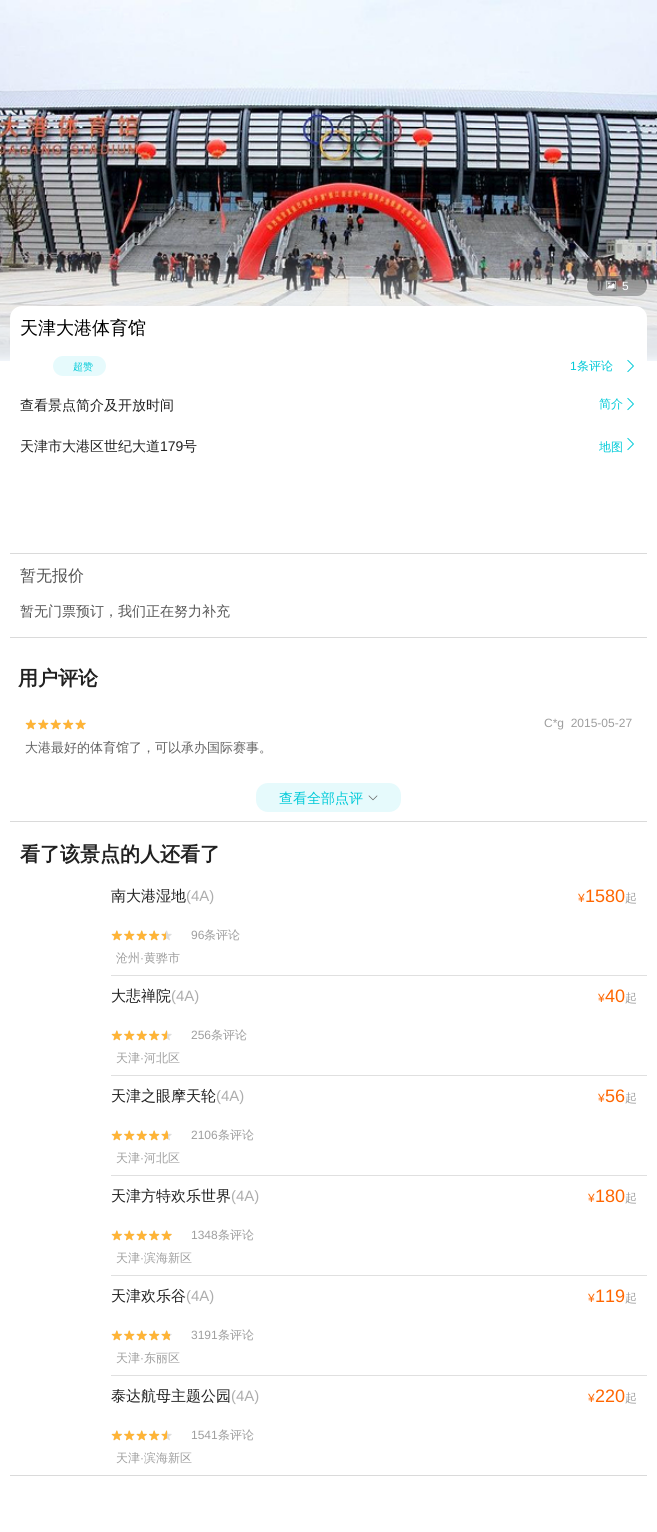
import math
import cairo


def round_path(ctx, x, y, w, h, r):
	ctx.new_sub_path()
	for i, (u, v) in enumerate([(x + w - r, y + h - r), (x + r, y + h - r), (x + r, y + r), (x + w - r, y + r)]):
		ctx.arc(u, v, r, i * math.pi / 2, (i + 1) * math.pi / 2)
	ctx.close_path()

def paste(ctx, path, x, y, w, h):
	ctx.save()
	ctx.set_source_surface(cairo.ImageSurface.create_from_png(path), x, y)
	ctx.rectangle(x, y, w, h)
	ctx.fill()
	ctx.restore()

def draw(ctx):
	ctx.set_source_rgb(1, 1, 1)
	ctx.paint()
	paste(ctx, 'media/1.png', 0, 0, 657, 360)
	ctx.set_source_rgba(0, 0, 0, 0.5)
	round_path(ctx, 587, 276, 60, 20, 10)
	ctx.fill()
	paste(ctx, 'media/2.png', 606, 280, 10, 10)
	ctx.select_font_face('Liberation Sans')
	ctx.set_font_size(12)
	ctx.set_source_rgb(1, 1, 1)
	ctx.move_to(622, 290)
	ctx.show_text('5')
	gradient = cairo.LinearGradient(329, 246, 329, 361)
	gradient.add_color_stop_rgba(0, 0.941, 0.957, 0.976, 0)
	gradient.add_color_stop_rgba(1, 0.941, 0.957, 0.976, 1)
	ctx.set_source(gradient)
	ctx.rectangle(0, 248, 657, 113)
	ctx.fill()
	ctx.set_source_rgb(1, 1, 1)
	round_path(ctx, 10, 306, 637, 172, 12)
	ctx.fill()
	ctx.select_font_face('WenQuanYi Zen Hei Medium')
	ctx.set_font_size(18)
	ctx.set_source_rgb(0, 0, 0)
	ctx.move_to(20, 334)
	ctx.show_text('天津大港体育馆')
	ctx.set_source_rgb(0.902, 0.98, 0.988)
	round_path(ctx, 53, 356, 53, 20, 10)
	ctx.fill()
	ctx.set_font_size(10)
	ctx.set_source_rgb(0, 0.792, 0.847)
	ctx.move_to(73, 370)
	ctx.show_text('超赞')
	ctx.select_font_face('Liberation Sans')
	ctx.set_font_size(12)
	ctx.move_to(570, 370)
	ctx.show_text('1')
	ctx.select_font_face('WenQuanYi Zen Hei Medium')
	ctx.move_to(577, 370)
	ctx.show_text('条评论')
	paste(ctx, 'media/3.png', 627, 359, 7, 14)
	ctx.set_font_size(14)
	ctx.set_source_rgb(0.129, 0.129, 0.129)
	ctx.move_to(20, 410)
	ctx.show_text('查看景点简介及开放时间')
	ctx.set_font_size(12)
	ctx.set_source_rgb(0, 0.792, 0.847)
	ctx.move_to(599, 408)
	ctx.show_text('简介')
	paste(ctx, 'media/3.png', 627, 397, 7, 14)
	ctx.set_font_size(14)
	ctx.set_source_rgb(0.129, 0.129, 0.129)
	ctx.move_to(20, 451)
	ctx.show_text('天津市大港区世纪大道')
	ctx.select_font_face('Liberation Sans')
	ctx.move_to(160, 451)
	ctx.show_text('179')
	ctx.select_font_face('WenQuanYi Zen Hei Medium')
	ctx.move_to(183, 451)
	ctx.show_text('号')
	ctx.set_font_size(12)
	ctx.set_source_rgb(0, 0.792, 0.847)
	ctx.move_to(599, 451)
	ctx.show_text('地图')
	paste(ctx, 'media/3.png', 627, 437, 7, 14)
	ctx.set_source_rgb(0.855, 0.855, 0.855)
	ctx.rectangle(10, 553, 637, 1)
	ctx.fill()
	ctx.set_font_size(16)
	ctx.set_source_rgb(0.333, 0.333, 0.333)
	ctx.move_to(20, 581)
	ctx.show_text('暂无报价')
	ctx.set_font_size(14)
	ctx.move_to(20, 616)
	ctx.show_text('暂无门票预订，我们正在努力补充')
	ctx.set_source_rgb(0.855, 0.855, 0.855)
	ctx.rectangle(10, 637, 637, 1)
	ctx.fill()
	ctx.select_font_face('WenQuanYi Zen Hei', cairo.FONT_SLANT_NORMAL, cairo.FONT_WEIGHT_BOLD)
	ctx.set_font_size(20)
	ctx.set_source_rgb(0.129, 0.129, 0.129)
	ctx.move_to(18, 685)
	ctx.show_text('用户评论')
	paste(ctx, 'media/4.png', 25, 719, 61, 11)
	paste(ctx, 'media/5.png', 25, 719, 61, 11)
	ctx.select_font_face('Liberation Sans')
	ctx.set_font_size(12)
	ctx.set_source_rgb(0.62, 0.62, 0.62)
	ctx.move_to(544, 727)
	ctx.show_text('C*g  2015-05-27')
	ctx.select_font_face('WenQuanYi Zen Hei Medium')
	ctx.set_font_size(13)
	ctx.set_source_rgb(0.38, 0.38, 0.38)
	ctx.move_to(25, 752)
	ctx.show_text('大港最好的体育馆了，可以承办国际赛事。')
	ctx.set_source_rgb(0.902, 0.98, 0.988)
	round_path(ctx, 256, 783, 145, 29, 12)
	ctx.fill()
	ctx.set_font_size(14)
	ctx.set_source_rgb(0, 0.792, 0.847)
	ctx.move_to(279, 803)
	ctx.show_text('查看全部点评')
	paste(ctx, 'media/6.png', 368, 795, 10, 6)
	ctx.set_source_rgb(0.855, 0.855, 0.855)
	ctx.rectangle(10, 821, 637, 1)
	ctx.fill()
	ctx.select_font_face('WenQuanYi Zen Hei', cairo.FONT_SLANT_NORMAL, cairo.FONT_WEIGHT_BOLD)
	ctx.set_font_size(20)
	ctx.set_source_rgb(0.129, 0.129, 0.129)
	ctx.move_to(20, 861)
	ctx.show_text('看了该景点的人还看了')
	ctx.select_font_face('WenQuanYi Zen Hei Medium')
	ctx.set_font_size(15)
	ctx.move_to(111, 901)
	ctx.show_text('南大港湿地')
	ctx.select_font_face('Liberation Sans')
	ctx.set_source_rgb(0.678, 0.678, 0.678)
	ctx.move_to(186, 901)
	ctx.show_text('(4A)')
	ctx.set_font_size(12)
	ctx.set_source_rgb(1, 0.4, 0)
	ctx.move_to(578, 902)
	ctx.show_text('¥')
	ctx.set_font_size(18)
	ctx.move_to(585, 902)
	ctx.show_text('1580')
	ctx.select_font_face('WenQuanYi Zen Hei Medium')
	ctx.set_font_size(12)
	ctx.set_source_rgb(0.62, 0.62, 0.62)
	ctx.move_to(625, 902)
	ctx.show_text('起')
	paste(ctx, 'media/4.png', 111, 930, 61, 11)
	paste(ctx, 'media/7.png', 111, 930, 55, 11)
	ctx.select_font_face('Liberation Sans')
	ctx.move_to(191, 939)
	ctx.show_text('96')
	ctx.select_font_face('WenQuanYi Zen Hei Medium')
	ctx.move_to(204, 939)
	ctx.show_text('条评论')
	ctx.move_to(116, 962)
	ctx.show_text('沧州')
	ctx.select_font_face('Liberation Sans')
	ctx.move_to(140, 962)
	ctx.show_text('·')
	ctx.select_font_face('WenQuanYi Zen Hei Medium')
	ctx.move_to(144, 962)
	ctx.show_text('黄骅市')
	ctx.set_source_rgb(0.878, 0.878, 0.878)
	ctx.rectangle(111, 975, 536, 1)
	ctx.fill()
	ctx.set_font_size(15)
	ctx.set_source_rgb(0.129, 0.129, 0.129)
	ctx.move_to(111, 1001)
	ctx.show_text('大悲禅院')
	ctx.select_font_face('Liberation Sans')
	ctx.set_source_rgb(0.678, 0.678, 0.678)
	ctx.move_to(171, 1001)
	ctx.show_text('(4A)')
	ctx.set_font_size(12)
	ctx.set_source_rgb(1, 0.4, 0)
	ctx.move_to(598, 1002)
	ctx.show_text('¥')
	ctx.set_font_size(18)
	ctx.move_to(605, 1002)
	ctx.show_text('40')
	ctx.select_font_face('WenQuanYi Zen Hei Medium')
	ctx.set_font_size(12)
	ctx.set_source_rgb(0.62, 0.62, 0.62)
	ctx.move_to(625, 1002)
	ctx.show_text('起')
	paste(ctx, 'media/4.png', 111, 1030, 61, 11)
	paste(ctx, 'media/8.png', 111, 1030, 56, 11)
	ctx.select_font_face('Liberation Sans')
	ctx.move_to(191, 1039)
	ctx.show_text('256')
	ctx.select_font_face('WenQuanYi Zen Hei Medium')
	ctx.move_to(211, 1039)
	ctx.show_text('条评论')
	ctx.move_to(116, 1062)
	ctx.show_text('天津')
	ctx.select_font_face('Liberation Sans')
	ctx.move_to(140, 1062)
	ctx.show_text('·')
	ctx.select_font_face('WenQuanYi Zen Hei Medium')
	ctx.move_to(144, 1062)
	ctx.show_text('河北区')
	ctx.set_source_rgb(0.878, 0.878, 0.878)
	ctx.rectangle(111, 1075, 536, 1)
	ctx.fill()
	ctx.set_font_size(15)
	ctx.set_source_rgb(0.129, 0.129, 0.129)
	ctx.move_to(111, 1101)
	ctx.show_text('天津之眼摩天轮')
	ctx.select_font_face('Liberation Sans')
	ctx.set_source_rgb(0.678, 0.678, 0.678)
	ctx.move_to(216, 1101)
	ctx.show_text('(4A)')
	ctx.set_font_size(12)
	ctx.set_source_rgb(1, 0.4, 0)
	ctx.move_to(598, 1102)
	ctx.show_text('¥')
	ctx.set_font_size(18)
	ctx.move_to(605, 1102)
	ctx.show_text('56')
	ctx.select_font_face('WenQuanYi Zen Hei Medium')
	ctx.set_font_size(12)
	ctx.set_source_rgb(0.62, 0.62, 0.62)
	ctx.move_to(625, 1102)
	ctx.show_text('起')
	paste(ctx, 'media/4.png', 111, 1130, 61, 11)
	paste(ctx, 'media/9.png', 111, 1130, 57, 11)
	ctx.select_font_face('Liberation Sans')
	ctx.move_to(191, 1139)
	ctx.show_text('2106')
	ctx.select_font_face('WenQuanYi Zen Hei Medium')
	ctx.move_to(218, 1139)
	ctx.show_text('条评论')
	ctx.move_to(116, 1162)
	ctx.show_text('天津')
	ctx.select_font_face('Liberation Sans')
	ctx.move_to(140, 1162)
	ctx.show_text('·')
	ctx.select_font_face('WenQuanYi Zen Hei Medium')
	ctx.move_to(144, 1162)
	ctx.show_text('河北区')
	ctx.set_source_rgb(0.878, 0.878, 0.878)
	ctx.rectangle(111, 1175, 536, 1)
	ctx.fill()
	ctx.set_font_size(15)
	ctx.set_source_rgb(0.129, 0.129, 0.129)
	ctx.move_to(111, 1201)
	ctx.show_text('天津方特欢乐世界')
	ctx.select_font_face('Liberation Sans')
	ctx.set_source_rgb(0.678, 0.678, 0.678)
	ctx.move_to(231, 1201)
	ctx.show_text('(4A)')
	ctx.set_font_size(12)
	ctx.set_source_rgb(1, 0.4, 0)
	ctx.move_to(588, 1202)
	ctx.show_text('¥')
	ctx.set_font_size(18)
	ctx.move_to(595, 1202)
	ctx.show_text('180')
	ctx.select_font_face('WenQuanYi Zen Hei Medium')
	ctx.set_font_size(12)
	ctx.set_source_rgb(0.62, 0.62, 0.62)
	ctx.move_to(625, 1202)
	ctx.show_text('起')
	paste(ctx, 'media/4.png', 111, 1230, 61, 11)
	paste(ctx, 'media/5.png', 111, 1230, 61, 11)
	ctx.select_font_face('Liberation Sans')
	ctx.move_to(191, 1239)
	ctx.show_text('1348')
	ctx.select_font_face('WenQuanYi Zen Hei Medium')
	ctx.move_to(218, 1239)
	ctx.show_text('条评论')
	ctx.move_to(116, 1262)
	ctx.show_text('天津')
	ctx.select_font_face('Liberation Sans')
	ctx.move_to(140, 1262)
	ctx.show_text('·')
	ctx.select_font_face('WenQuanYi Zen Hei Medium')
	ctx.move_to(144, 1262)
	ctx.show_text('滨海新区')
	ctx.set_source_rgb(0.878, 0.878, 0.878)
	ctx.rectangle(111, 1275, 536, 1)
	ctx.fill()
	ctx.set_font_size(15)
	ctx.set_source_rgb(0.129, 0.129, 0.129)
	ctx.move_to(111, 1301)
	ctx.show_text('天津欢乐谷')
	ctx.select_font_face('Liberation Sans')
	ctx.set_source_rgb(0.678, 0.678, 0.678)
	ctx.move_to(186, 1301)
	ctx.show_text('(4A)')
	ctx.set_font_size(12)
	ctx.set_source_rgb(1, 0.4, 0)
	ctx.move_to(588, 1302)
	ctx.show_text('¥')
	ctx.set_font_size(18)
	ctx.move_to(595, 1302)
	ctx.show_text('119')
	ctx.select_font_face('WenQuanYi Zen Hei Medium')
	ctx.set_font_size(12)
	ctx.set_source_rgb(0.62, 0.62, 0.62)
	ctx.move_to(625, 1302)
	ctx.show_text('起')
	paste(ctx, 'media/4.png', 111, 1330, 61, 11)
	paste(ctx, 'media/10.png', 111, 1330, 59, 11)
	ctx.select_font_face('Liberation Sans')
	ctx.move_to(191, 1339)
	ctx.show_text('3191')
	ctx.select_font_face('WenQuanYi Zen Hei Medium')
	ctx.move_to(218, 1339)
	ctx.show_text('条评论')
	ctx.move_to(116, 1362)
	ctx.show_text('天津')
	ctx.select_font_face('Liberation Sans')
	ctx.move_to(140, 1362)
	ctx.show_text('·')
	ctx.select_font_face('WenQuanYi Zen Hei Medium')
	ctx.move_to(144, 1362)
	ctx.show_text('东丽区')
	ctx.set_source_rgb(0.878, 0.878, 0.878)
	ctx.rectangle(111, 1375, 536, 1)
	ctx.fill()
	ctx.set_font_size(15)
	ctx.set_source_rgb(0.129, 0.129, 0.129)
	ctx.move_to(111, 1401)
	ctx.show_text('泰达航母主题公园')
	ctx.select_font_face('Liberation Sans')
	ctx.set_source_rgb(0.678, 0.678, 0.678)
	ctx.move_to(231, 1401)
	ctx.show_text('(4A)')
	ctx.set_font_size(12)
	ctx.set_source_rgb(1, 0.4, 0)
	ctx.move_to(588, 1402)
	ctx.show_text('¥')
	ctx.set_font_size(18)
	ctx.move_to(595, 1402)
	ctx.show_text('220')
	ctx.select_font_face('WenQuanYi Zen Hei Medium')
	ctx.set_font_size(12)
	ctx.set_source_rgb(0.62, 0.62, 0.62)
	ctx.move_to(625, 1402)
	ctx.show_text('起')
	paste(ctx, 'media/4.png', 111, 1430, 61, 11)
	paste(ctx, 'media/8.png', 111, 1430, 56, 11)
	ctx.select_font_face('Liberation Sans')
	ctx.move_to(191, 1439)
	ctx.show_text('1541')
	ctx.select_font_face('WenQuanYi Zen Hei Medium')
	ctx.move_to(218, 1439)
	ctx.show_text('条评论')
	ctx.move_to(116, 1462)
	ctx.show_text('天津')
	ctx.select_font_face('Liberation Sans')
	ctx.move_to(140, 1462)
	ctx.show_text('·')
	ctx.select_font_face('WenQuanYi Zen Hei Medium')
	ctx.move_to(144, 1462)
	ctx.show_text('滨海新区')
	ctx.set_source_rgb(0.855, 0.855, 0.855)
	ctx.rectangle(10, 1475, 637, 1)
	ctx.fill()


surface = cairo.ImageSurface(cairo.FORMAT_RGB24, 657, 1532)
ctx = cairo.Context(surface)
options = cairo.FontOptions()
options.set_hint_metrics(cairo.HINT_METRICS_OFF)
options.set_hint_style(cairo.HINT_STYLE_NONE)
ctx.set_font_options(options)
ctx.set_miter_limit(4)
draw(ctx)
surface.write_to_png('image.png')
